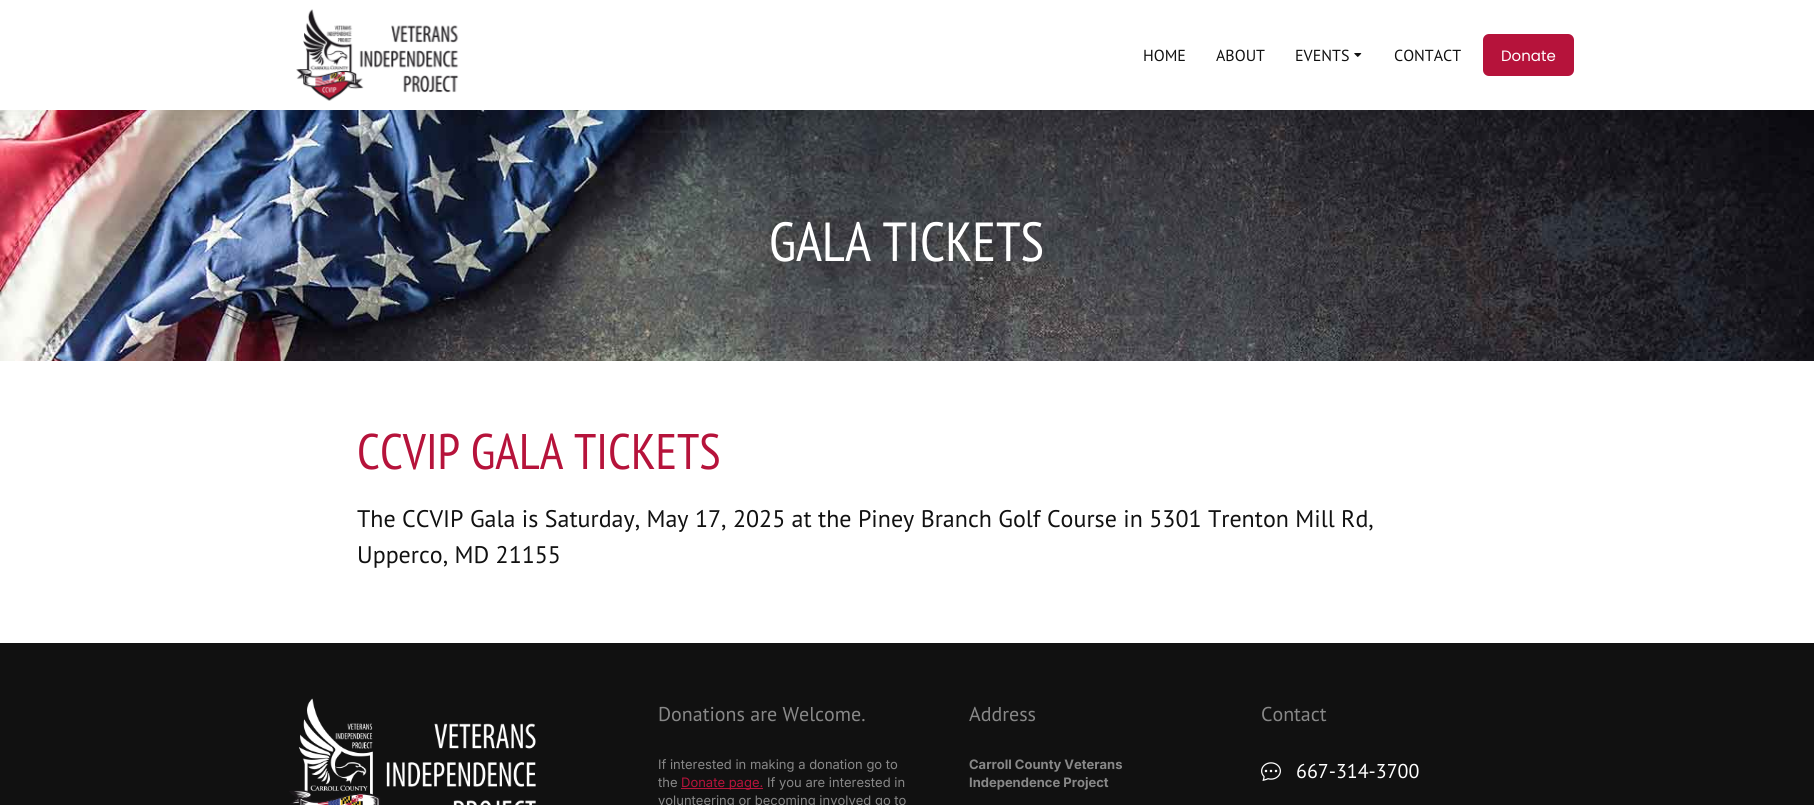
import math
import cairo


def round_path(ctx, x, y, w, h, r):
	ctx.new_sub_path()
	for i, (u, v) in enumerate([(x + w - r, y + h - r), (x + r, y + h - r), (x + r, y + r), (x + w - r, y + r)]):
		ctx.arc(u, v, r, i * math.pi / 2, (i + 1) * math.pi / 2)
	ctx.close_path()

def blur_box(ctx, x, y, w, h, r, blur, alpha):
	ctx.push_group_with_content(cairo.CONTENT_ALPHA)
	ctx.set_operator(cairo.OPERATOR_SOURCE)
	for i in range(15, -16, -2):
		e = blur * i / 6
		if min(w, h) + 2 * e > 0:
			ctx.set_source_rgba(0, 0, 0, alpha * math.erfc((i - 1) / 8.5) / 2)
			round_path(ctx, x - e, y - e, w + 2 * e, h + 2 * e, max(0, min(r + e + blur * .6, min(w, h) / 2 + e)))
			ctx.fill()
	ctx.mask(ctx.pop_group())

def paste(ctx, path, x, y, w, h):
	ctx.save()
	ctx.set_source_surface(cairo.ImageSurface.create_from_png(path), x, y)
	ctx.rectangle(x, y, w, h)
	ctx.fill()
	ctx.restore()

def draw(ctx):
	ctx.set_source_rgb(1, 1, 1)
	ctx.paint()
	paste(ctx, 'media/3.png', 0, 110, 1814, 251)
	ctx.save()
	ctx.rectangle(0, 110, 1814, 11)
	ctx.clip()
	ctx.set_source_rgb(0, 0, 0)
	blur_box(ctx, 0, 0, 1814, 110, 0, 12.5, 0.1)
	ctx.restore()
	paste(ctx, 'media/1.png', 296, 9, 163, 92)
	ctx.select_font_face('PT Sans')
	ctx.set_font_size(16)
	ctx.set_source_rgb(0.067, 0.067, 0.067)
	for x, y, s in [
		(1143, 61, 'HOME'),
		(1216, 61, 'ABOUT'),
		(1295, 61, 'EVENTS'),
	]:
		ctx.move_to(x, y)
		ctx.show_text(s)
	paste(ctx, 'media/2.png', 1354, 53, 8, 4)
	ctx.move_to(1394, 61)
	ctx.show_text('CONTACT')
	ctx.set_source_rgb(0.714, 0.075, 0.231)
	round_path(ctx, 1483, 34, 91, 42, 6)
	ctx.fill()
	ctx.select_font_face('Poppins')
	ctx.set_font_size(15)
	ctx.set_source_rgb(1, 1, 1)
	ctx.move_to(1501, 61)
	ctx.show_text('Donate')
	ctx.select_font_face('PT Sans Narrow')
	ctx.set_font_size(55)
	ctx.move_to(769, 261)
	ctx.show_text('GALA TICKETS')
	ctx.set_font_size(50)
	ctx.set_source_rgb(0.714, 0.075, 0.231)
	ctx.move_to(357, 469)
	ctx.show_text('CCVIP GALA TICKETS')
	ctx.select_font_face('PT Sans')
	ctx.set_font_size(24)
	ctx.set_source_rgb(0.067, 0.067, 0.067)
	ctx.move_to(357, 527)
	ctx.show_text('The CCVIP Gala is Saturday, May 17, 2025 at the Piney Branch Golf Course in 5301 Trenton Mill Rd,')
	ctx.move_to(357, 563)
	ctx.show_text('Upperco, MD 21155')
	ctx.rectangle(0, 643, 1814, 162)
	ctx.fill()
	paste(ctx, 'media/4.png', 289, 698, 247, 107)
	ctx.set_font_size(20)
	ctx.set_source_rgb(0.533, 0.533, 0.533)
	ctx.move_to(658, 721)
	ctx.show_text('Donations are Welcome.')
	ctx.select_font_face('Inter')
	ctx.set_font_size(13)
	ctx.move_to(658, 769)
	ctx.show_text('If interested in making a donation go to')
	ctx.move_to(658, 787)
	ctx.show_text('the')
	ctx.set_source_rgb(0.714, 0.075, 0.231)
	ctx.rectangle(681, 788, 82, 1)
	ctx.fill()
	ctx.move_to(681, 787)
	ctx.show_text('Donate page.')
	ctx.set_source_rgb(0.533, 0.533, 0.533)
	ctx.move_to(767, 787)
	ctx.show_text('If you are interested in')
	ctx.move_to(658, 805)
	ctx.show_text('volunteering or becoming involved go to')
	ctx.select_font_face('PT Sans')
	ctx.set_font_size(20)
	ctx.move_to(969, 721)
	ctx.show_text('Address')
	ctx.select_font_face('Inter', cairo.FONT_SLANT_NORMAL, cairo.FONT_WEIGHT_BOLD)
	ctx.set_font_size(13)
	ctx.move_to(969, 769)
	ctx.show_text('Carroll County Veterans')
	ctx.move_to(969, 787)
	ctx.show_text('Independence Project')
	ctx.select_font_face('PT Sans')
	ctx.set_font_size(20)
	ctx.move_to(1261, 721)
	ctx.show_text('Contact')
	paste(ctx, 'media/5.png', 1261, 762, 20, 19)
	ctx.set_source_rgb(1, 1, 1)
	ctx.move_to(1296, 778)
	ctx.show_text('667-314-3700')


surface = cairo.ImageSurface(cairo.FORMAT_RGB24, 1814, 805)
ctx = cairo.Context(surface)
options = cairo.FontOptions()
options.set_hint_metrics(cairo.HINT_METRICS_OFF)
options.set_hint_style(cairo.HINT_STYLE_NONE)
ctx.set_font_options(options)
ctx.set_miter_limit(4)
draw(ctx)
surface.write_to_png('image.png')
